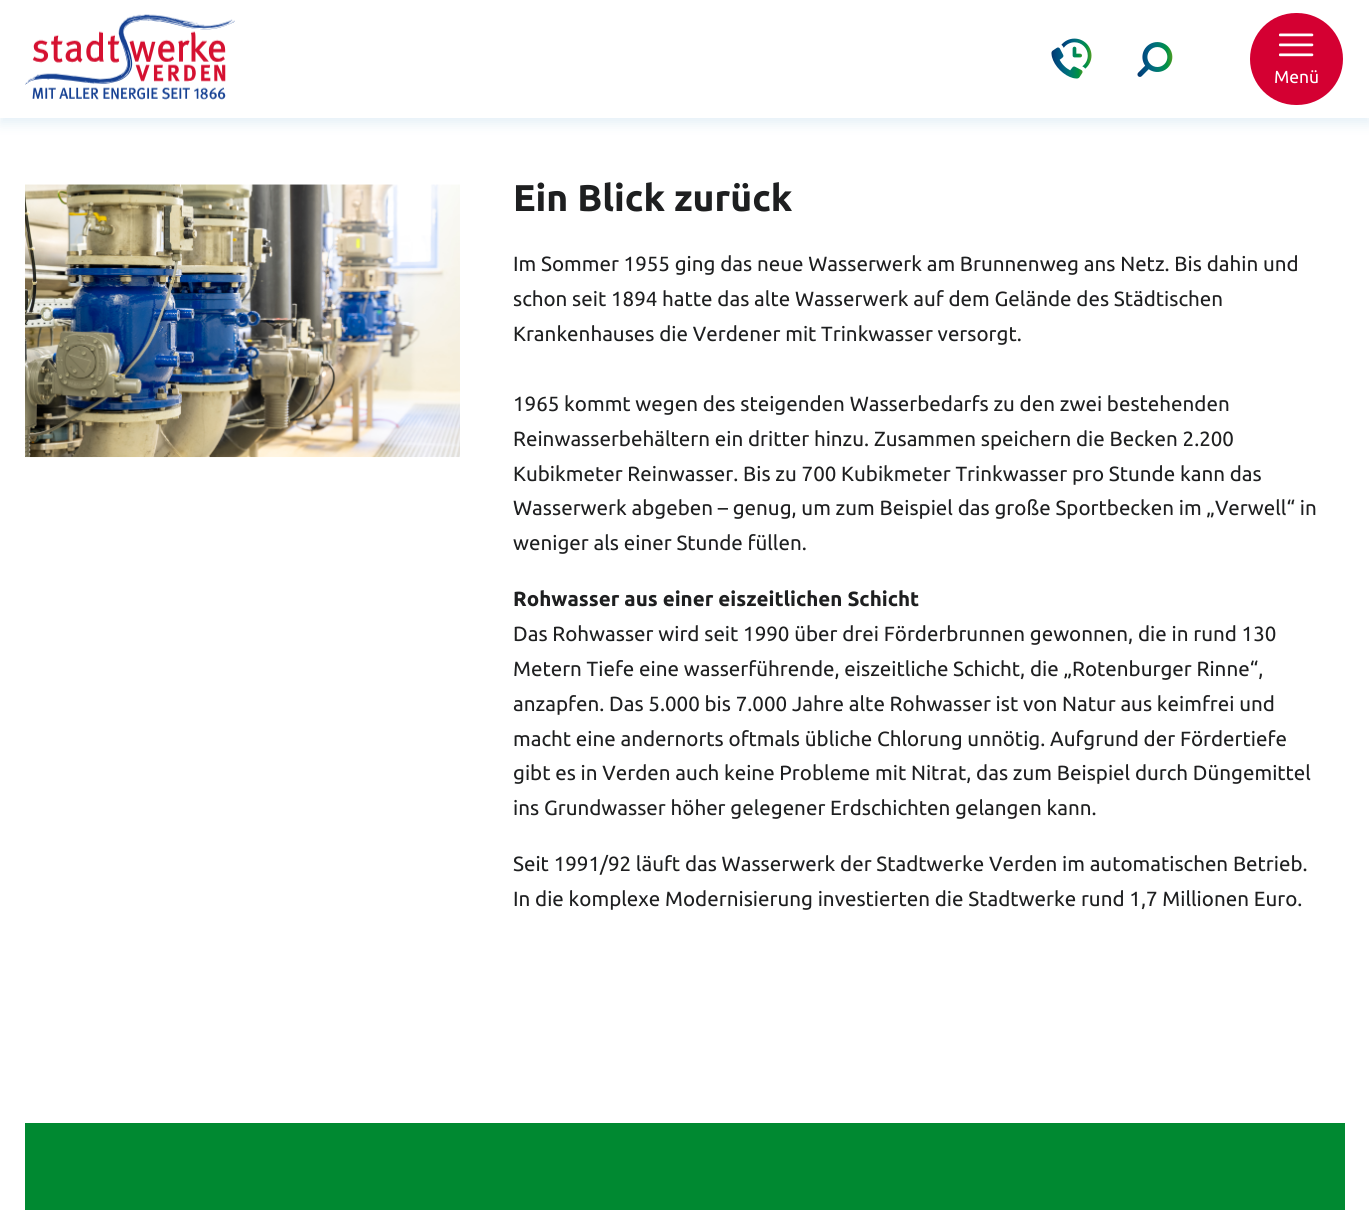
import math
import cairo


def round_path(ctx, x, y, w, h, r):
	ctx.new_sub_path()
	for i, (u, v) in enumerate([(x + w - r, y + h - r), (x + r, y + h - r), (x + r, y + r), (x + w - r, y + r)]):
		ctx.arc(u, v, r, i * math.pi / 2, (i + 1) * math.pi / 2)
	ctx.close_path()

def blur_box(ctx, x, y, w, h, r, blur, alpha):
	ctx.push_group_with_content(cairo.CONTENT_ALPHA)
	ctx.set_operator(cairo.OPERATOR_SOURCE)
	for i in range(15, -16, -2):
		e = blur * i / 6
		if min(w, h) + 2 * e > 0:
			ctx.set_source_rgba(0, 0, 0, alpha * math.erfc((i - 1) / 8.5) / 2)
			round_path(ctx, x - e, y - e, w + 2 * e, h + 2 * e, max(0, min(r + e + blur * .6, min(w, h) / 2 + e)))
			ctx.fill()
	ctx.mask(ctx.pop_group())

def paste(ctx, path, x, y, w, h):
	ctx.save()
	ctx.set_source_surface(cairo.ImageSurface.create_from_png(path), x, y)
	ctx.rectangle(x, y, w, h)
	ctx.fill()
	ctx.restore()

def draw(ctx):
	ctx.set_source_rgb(1, 1, 1)
	ctx.paint()
	ctx.set_source_rgb(0, 0.416, 0.702)
	blur_box(ctx, 0, 6, 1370, 118, 0, 6, 0.1)
	ctx.set_source_rgb(1, 1, 1)
	ctx.rectangle(0, 0, 1369, 118)
	ctx.fill()
	paste(ctx, 'media/1.png', 25, 14, 210, 86)
	paste(ctx, 'media/2.png', 1051, 38, 41, 41)
	paste(ctx, 'media/3.png', 1137, 42, 36, 35)
	ctx.set_source_rgb(0.831, 0, 0.196)
	round_path(ctx, 1250, 13, 93, 92, 46)
	ctx.fill()
	paste(ctx, 'media/4.png', 1279, 33, 35, 24)
	ctx.select_font_face('Ubuntu')
	ctx.set_font_size(17.5)
	ctx.set_source_rgb(1, 1, 1)
	ctx.move_to(1274, 83)
	ctx.show_text('Menü')
	paste(ctx, 'media/5.png', 25, 184, 435, 274)
	ctx.select_font_face('Ubuntu', cairo.FONT_SLANT_NORMAL, cairo.FONT_WEIGHT_BOLD)
	ctx.set_font_size(37.25)
	ctx.set_source_rgb(0.118, 0.122, 0.125)
	ctx.move_to(513, 211)
	ctx.show_text('Ein Blick zurück')
	ctx.select_font_face('Ubuntu')
	ctx.set_font_size(20.55)
	for x, y, s in [
		(513, 271, 'Im Sommer 1955 ging das neue Wasserwerk am Brunnenweg ans Netz. Bis dahin und'),
		(513, 306, 'schon seit 1894 hatte das alte Wasserwerk auf dem Gelände des Städtischen'),
		(513, 341, 'Krankenhauses die Verdener mit Trinkwasser versorgt.'),
		(513, 411, '1965 kommt wegen des steigenden Wasserbedarfs zu den zwei bestehenden'),
		(513, 446, 'Reinwasserbehältern ein dritter hinzu. Zusammen speichern die Becken 2.200'),
		(513, 481, 'Kubikmeter Reinwasser. Bis zu 700 Kubikmeter Trinkwasser pro Stunde kann das'),
		(513, 515, 'Wasserwerk abgeben – genug, um zum Beispiel das große Sportbecken im „Verwell“ in'),
		(513, 550, 'weniger als einer Stunde füllen.'),
	]:
		ctx.move_to(x, y)
		ctx.show_text(s)
	ctx.select_font_face('Ubuntu', cairo.FONT_SLANT_NORMAL, cairo.FONT_WEIGHT_BOLD)
	ctx.move_to(513, 606)
	ctx.show_text('Rohwasser aus einer eiszeitlichen Schicht')
	ctx.select_font_face('Ubuntu')
	for x, y, s in [
		(513, 641, 'Das Rohwasser wird seit 1990 über drei Förderbrunnen gewonnen, die in rund 130'),
		(513, 676, 'Metern Tiefe eine wasserführende, eiszeitliche Schicht, die „Rotenburger Rinne“,'),
		(513, 711, 'anzapfen. Das 5.000 bis 7.000 Jahre alte Rohwasser ist von Natur aus keimfrei und'),
		(513, 746, 'macht eine andernorts oftmals übliche Chlorung unnötig. Aufgrund der Fördertiefe'),
		(513, 780, 'gibt es in Verden auch keine Probleme mit Nitrat, das zum Beispiel durch Düngemittel'),
		(513, 815, 'ins Grundwasser höher gelegener Erdschichten gelangen kann.'),
		(513, 871, 'Seit 1991/92 läuft das Wasserwerk der Stadtwerke Verden im automatischen Betrieb.'),
		(513, 906, 'In die komplexe Modernisierung investierten die Stadtwerke rund 1,7 Millionen Euro.'),
	]:
		ctx.move_to(x, y)
		ctx.show_text(s)
	ctx.set_source_rgb(0, 0.537, 0.192)
	ctx.rectangle(25, 1123, 1320, 87)
	ctx.fill()


surface = cairo.ImageSurface(cairo.FORMAT_RGB24, 1369, 1210)
ctx = cairo.Context(surface)
options = cairo.FontOptions()
options.set_hint_metrics(cairo.HINT_METRICS_OFF)
options.set_hint_style(cairo.HINT_STYLE_NONE)
ctx.set_font_options(options)
ctx.set_miter_limit(4)
draw(ctx)
surface.write_to_png('image.png')
